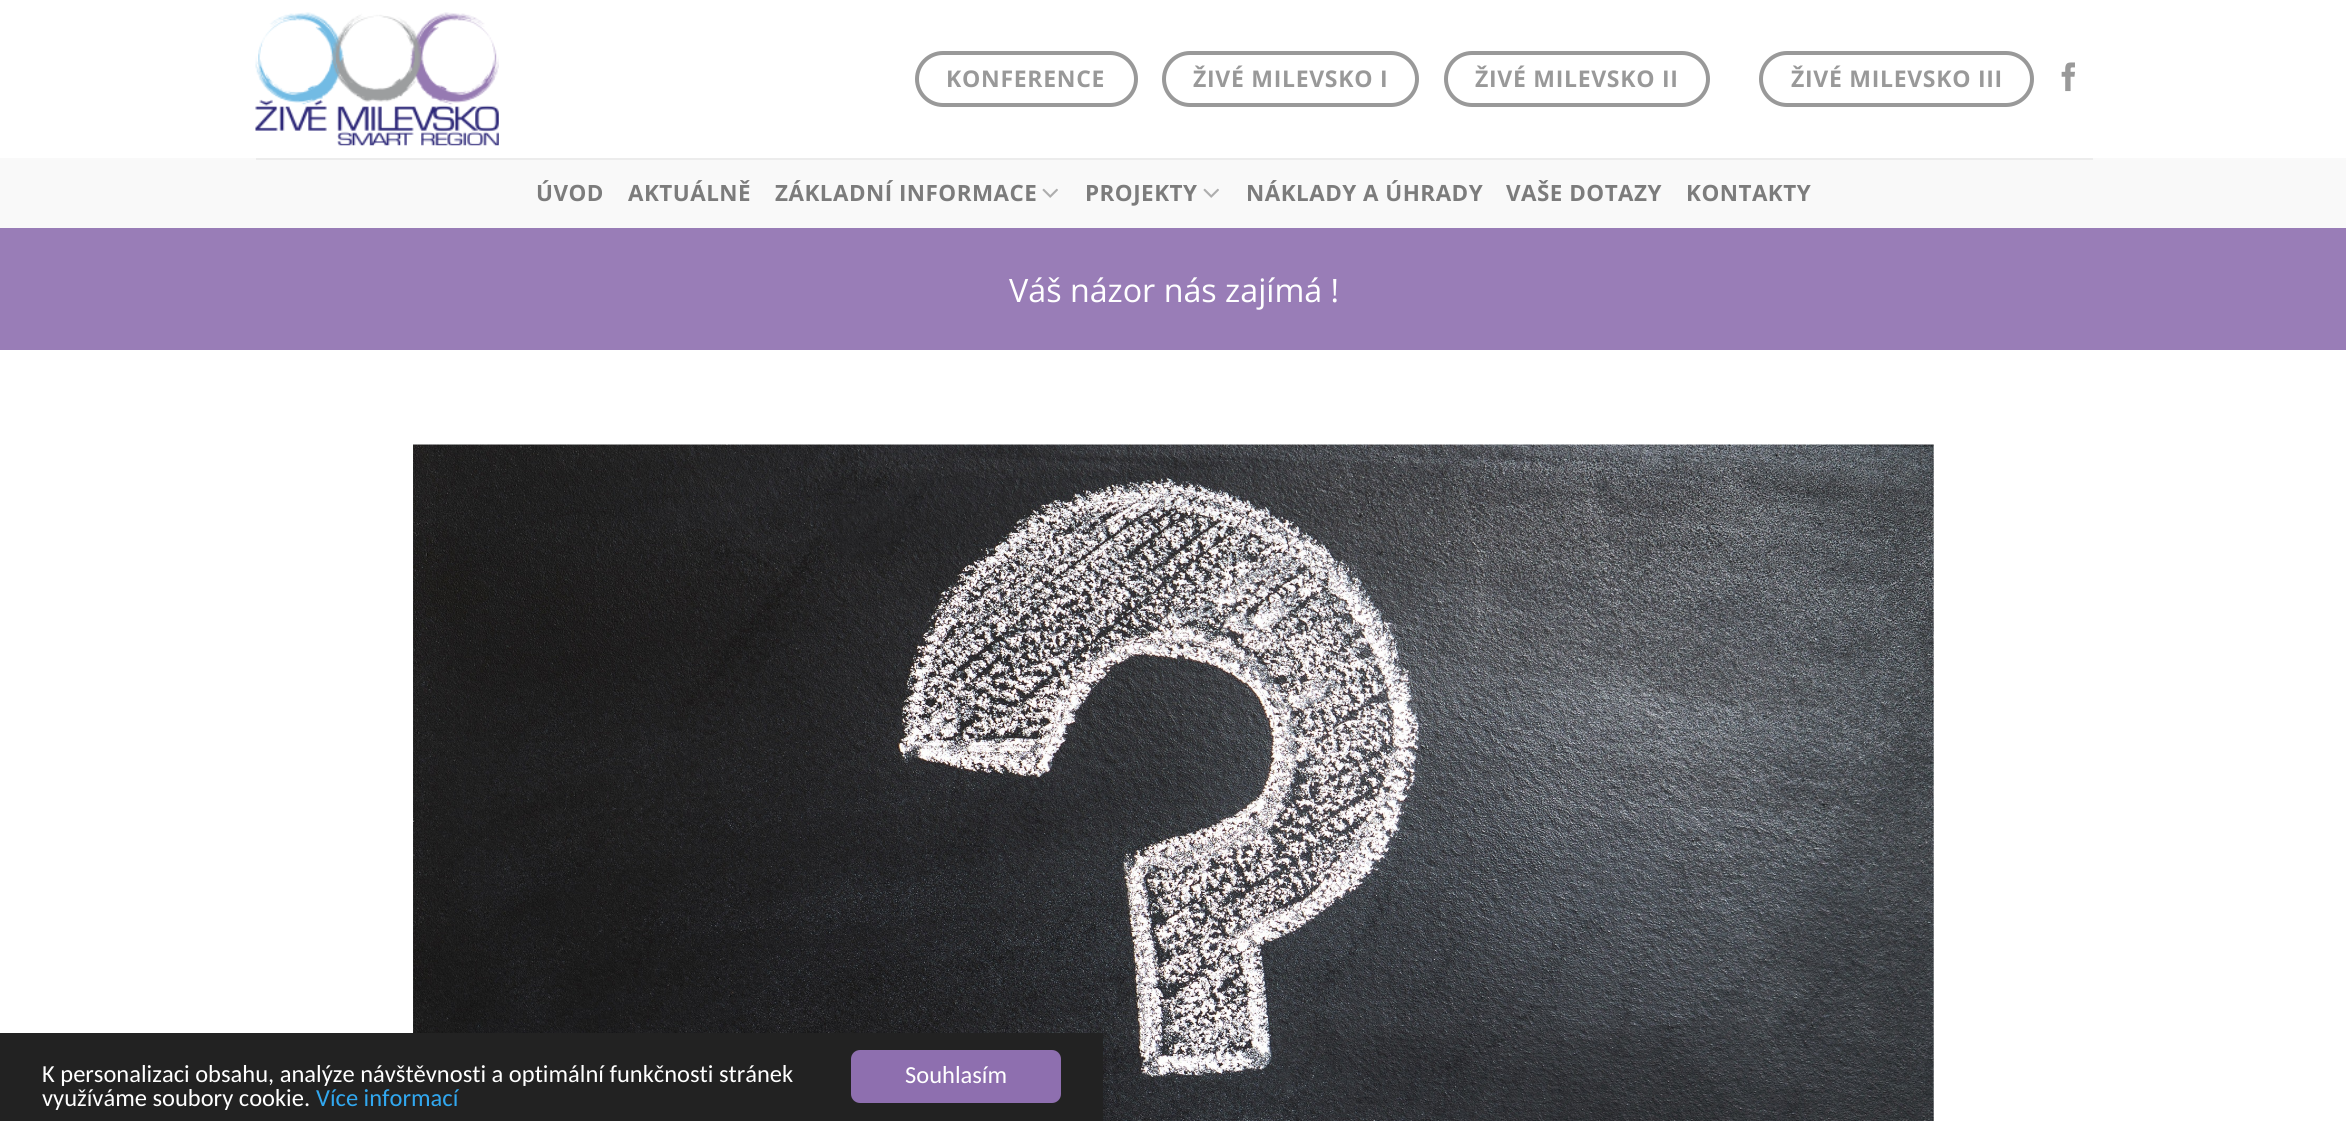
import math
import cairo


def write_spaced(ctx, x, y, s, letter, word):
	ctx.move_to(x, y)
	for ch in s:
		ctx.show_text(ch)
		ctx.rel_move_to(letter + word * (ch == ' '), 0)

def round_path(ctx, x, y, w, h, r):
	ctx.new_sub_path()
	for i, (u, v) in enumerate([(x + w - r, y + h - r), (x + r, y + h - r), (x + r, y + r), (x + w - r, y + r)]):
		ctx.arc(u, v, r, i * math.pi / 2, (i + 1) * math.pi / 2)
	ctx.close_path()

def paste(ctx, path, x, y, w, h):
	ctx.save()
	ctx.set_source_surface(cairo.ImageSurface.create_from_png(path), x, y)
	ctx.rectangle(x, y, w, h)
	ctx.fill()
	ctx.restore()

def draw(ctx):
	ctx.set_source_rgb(1, 1, 1)
	ctx.paint()
	paste(ctx, 'media/1.png', 255, 12, 244, 134)
	round_path(ctx, 917, 53, 219, 52, 26)
	ctx.set_source_rgb(0.6, 0.6, 0.6)
	ctx.set_line_width(4)
	ctx.stroke()
	ctx.select_font_face('Open Sans', cairo.FONT_SLANT_NORMAL, cairo.FONT_WEIGHT_BOLD)
	ctx.set_font_size(23)
	write_spaced(ctx, 946, 87, 'KONFERENCE', 0.7, 0)
	round_path(ctx, 1164, 53, 253, 52, 26)
	ctx.stroke()
	write_spaced(ctx, 1193, 87, 'ŽIVÉ MILEVSKO I', 0.7, 0)
	round_path(ctx, 1446, 53, 262, 52, 26)
	ctx.stroke()
	write_spaced(ctx, 1475, 87, 'ŽIVÉ MILEVSKO II', 0.7, 0)
	round_path(ctx, 1761, 53, 271, 52, 26)
	ctx.stroke()
	write_spaced(ctx, 1791, 87, 'ŽIVÉ MILEVSKO III', 0.7, 0)
	paste(ctx, 'media/2.png', 2061, 62, 14, 30)
	ctx.set_source_rgb(0.976, 0.976, 0.976)
	ctx.rectangle(0, 158, 2346, 70)
	ctx.fill()
	ctx.set_source_rgb(0.925, 0.925, 0.925)
	ctx.rectangle(256, 158, 1837, 2)
	ctx.fill()
	ctx.set_font_size(22.4)
	ctx.set_source_rgb(0.486, 0.486, 0.486)
	for x, y, s in [
		(536, 201, 'ÚVOD'),
		(628, 201, 'AKTUÁLNĚ'),
		(775, 201, 'ZÁKLADNÍ INFORMACE'),
	]:
		write_spaced(ctx, x, y, s, 0.5, 0)
	paste(ctx, 'media/3.png', 1042, 188, 16, 10)
	write_spaced(ctx, 1085, 201, 'PROJEKTY', 0.5, 0)
	paste(ctx, 'media/3.png', 1203, 188, 16, 10)
	for x, y, s in [
		(1246, 201, 'NÁKLADY A ÚHRADY'),
		(1506, 201, 'VAŠE DOTAZY'),
		(1686, 201, 'KONTAKTY'),
	]:
		write_spaced(ctx, x, y, s, 0.5, 0)
	ctx.set_source_rgb(0.6, 0.49, 0.718)
	ctx.rectangle(0, 228, 2346, 122)
	ctx.fill()
	ctx.select_font_face('Open Sans')
	ctx.set_font_size(32.25)
	ctx.set_source_rgb(1, 1, 1)
	ctx.move_to(1009, 302)
	ctx.show_text('Váš názor nás zajímá !')
	paste(ctx, 'media/4.png', 413, 444, 1521, 677)
	ctx.set_source_rgb(0.133, 0.133, 0.133)
	ctx.rectangle(0, 1033, 1103, 88)
	ctx.fill()
	ctx.select_font_face('Carlito')
	ctx.set_font_size(24.5)
	ctx.set_source_rgb(1, 1, 1)
	ctx.move_to(42, 1082)
	ctx.show_text('K personalizaci obsahu, analýze návštěvnosti a optimální funkčnosti stránek')
	ctx.move_to(42, 1106)
	ctx.show_text('využíváme soubory cookie.')
	ctx.set_source_rgb(0.192, 0.659, 0.941)
	ctx.move_to(316, 1106)
	ctx.show_text('Více informací')
	ctx.set_source_rgb(0.557, 0.435, 0.686)
	round_path(ctx, 851, 1050, 210, 53, 9)
	ctx.fill()
	ctx.set_source_rgb(1, 1, 1)
	ctx.move_to(905, 1083)
	ctx.show_text('Souhlasím')


surface = cairo.ImageSurface(cairo.FORMAT_RGB24, 2346, 1121)
ctx = cairo.Context(surface)
options = cairo.FontOptions()
options.set_hint_metrics(cairo.HINT_METRICS_OFF)
options.set_hint_style(cairo.HINT_STYLE_NONE)
ctx.set_font_options(options)
ctx.set_miter_limit(4)
draw(ctx)
surface.write_to_png('image.png')
